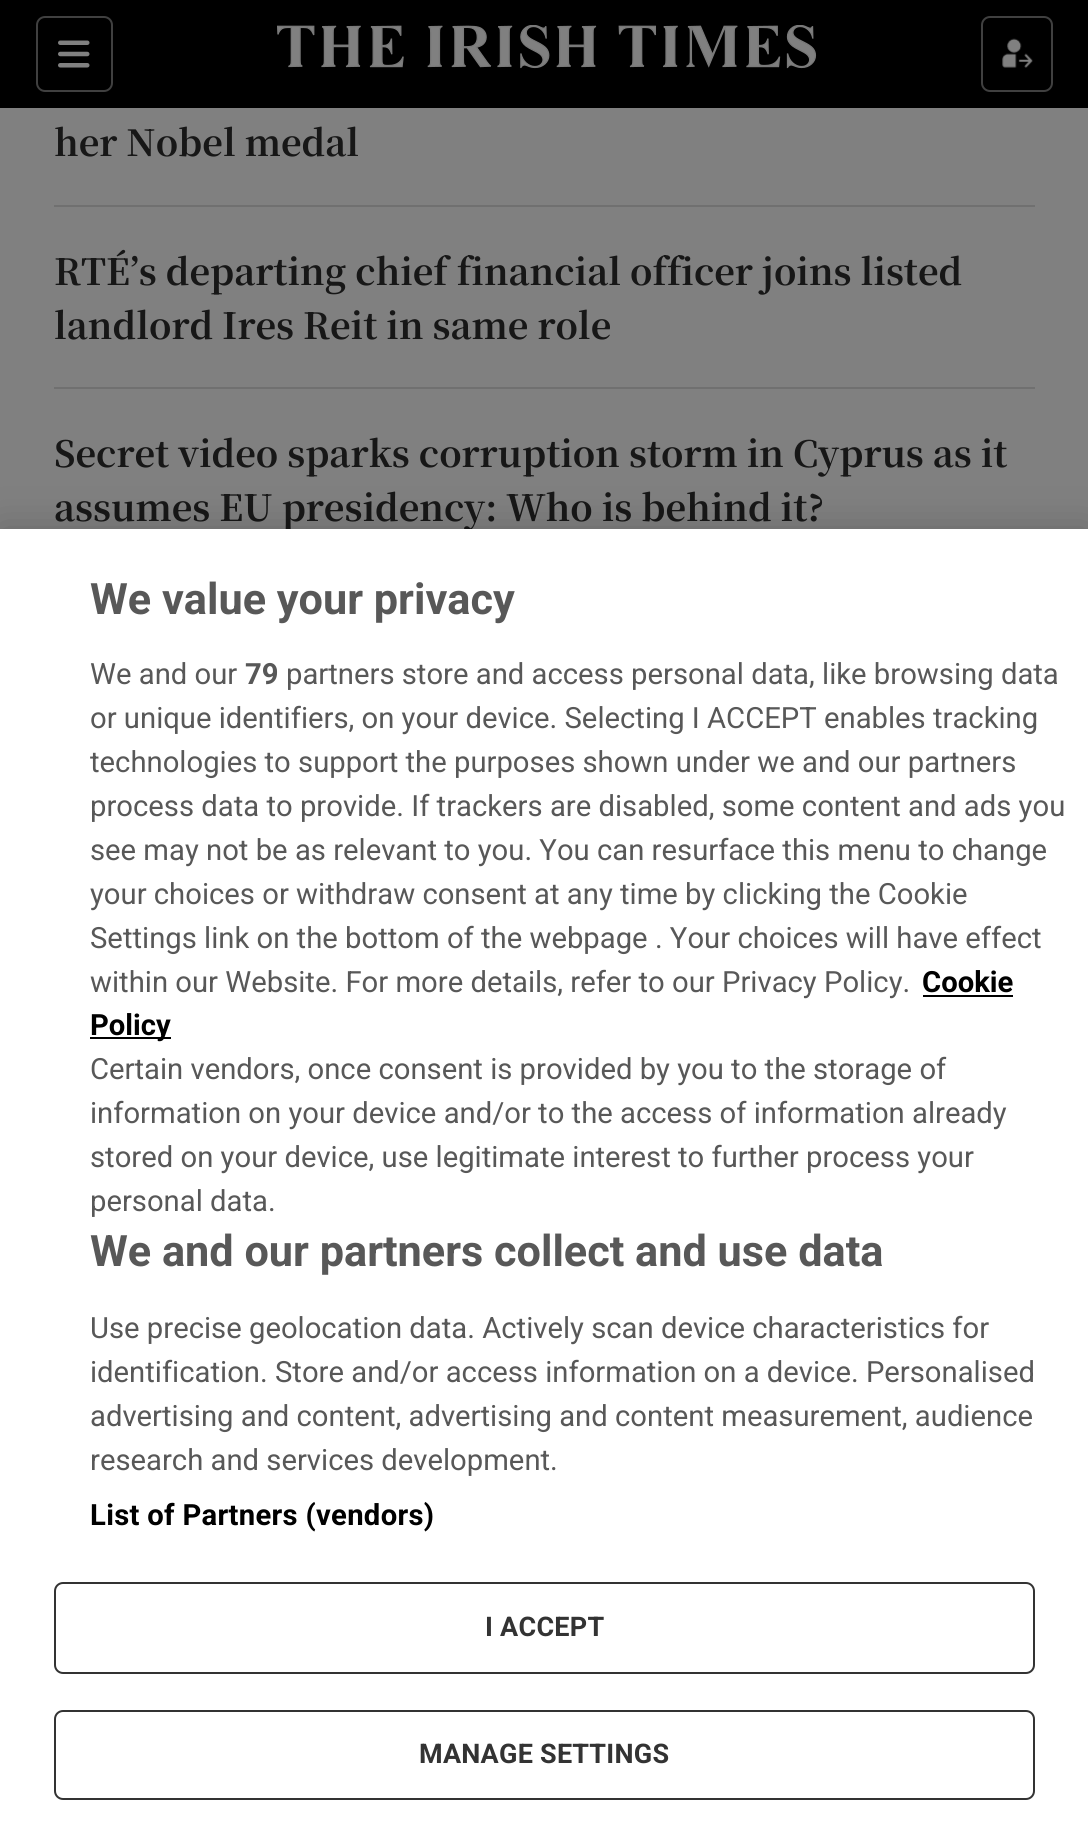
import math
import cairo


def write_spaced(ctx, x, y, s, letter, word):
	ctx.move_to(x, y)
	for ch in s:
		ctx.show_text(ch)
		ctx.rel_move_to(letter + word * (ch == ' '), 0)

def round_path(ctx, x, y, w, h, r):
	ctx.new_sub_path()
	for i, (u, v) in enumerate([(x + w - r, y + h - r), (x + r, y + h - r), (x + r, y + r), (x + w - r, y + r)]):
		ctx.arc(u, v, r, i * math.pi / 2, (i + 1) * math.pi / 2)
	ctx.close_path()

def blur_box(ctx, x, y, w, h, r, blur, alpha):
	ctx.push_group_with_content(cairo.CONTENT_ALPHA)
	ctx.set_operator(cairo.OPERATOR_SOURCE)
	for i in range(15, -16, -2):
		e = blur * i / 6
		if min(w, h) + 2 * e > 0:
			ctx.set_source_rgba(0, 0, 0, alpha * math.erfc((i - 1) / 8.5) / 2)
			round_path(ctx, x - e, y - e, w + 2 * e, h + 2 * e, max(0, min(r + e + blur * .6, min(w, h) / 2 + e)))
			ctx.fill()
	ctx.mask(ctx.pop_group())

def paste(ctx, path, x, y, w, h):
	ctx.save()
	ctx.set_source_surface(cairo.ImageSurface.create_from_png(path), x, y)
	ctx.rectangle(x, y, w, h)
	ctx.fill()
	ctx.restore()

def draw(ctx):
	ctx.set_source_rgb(0.502, 0.502, 0.502)
	ctx.paint()
	ctx.set_source_rgb(0, 0, 0)
	ctx.rectangle(0, 0, 1088, 108)
	ctx.fill()
	round_path(ctx, 37, 17, 75, 74, 8)
	ctx.set_source_rgb(0.251, 0.251, 0.251)
	ctx.stroke()
	paste(ctx, 'media/1.png', 58, 40, 32, 28)
	paste(ctx, 'media/2.png', 277, 25, 540, 44)
	round_path(ctx, 982, 17, 70, 74, 8)
	ctx.stroke()
	paste(ctx, 'media/3.png', 1002, 38, 31, 30)
	ctx.select_font_face('Noto Serif JP ExtraLight')
	ctx.set_font_size(36)
	ctx.set_source_rgb(0.09, 0.09, 0.09)
	ctx.move_to(54, 156)
	ctx.show_text('her Nobel medal')
	ctx.set_source_rgb(0.439, 0.439, 0.439)
	ctx.rectangle(54, 205, 981, 2)
	ctx.fill()
	ctx.set_source_rgb(0.09, 0.09, 0.09)
	ctx.move_to(54, 285)
	ctx.show_text('RTÉ’s departing chief financial officer joins listed')
	ctx.move_to(54, 339)
	ctx.show_text('landlord Ires Reit in same role')
	ctx.set_source_rgb(0.439, 0.439, 0.439)
	ctx.rectangle(54, 387, 981, 2)
	ctx.fill()
	ctx.set_source_rgb(0.09, 0.09, 0.09)
	ctx.move_to(54, 467)
	ctx.show_text('Secret video sparks corruption storm in Cyprus as it')
	ctx.move_to(54, 521)
	ctx.show_text('assumes EU presidency: Who is behind it?')
	ctx.set_source_rgb(0, 0, 0)
	blur_box(ctx, 0, 529, 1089, 1307, 0, 20, 0.2)
	ctx.set_source_rgb(1, 1, 1)
	ctx.rectangle(0, 529, 1088, 1307)
	ctx.fill()
	ctx.select_font_face('Roboto', cairo.FONT_SLANT_NORMAL, cairo.FONT_WEIGHT_BOLD)
	ctx.set_font_size(43.25)
	ctx.set_source_rgb(0.345, 0.345, 0.345)
	ctx.move_to(90, 614)
	ctx.show_text('We value your privacy')
	ctx.select_font_face('Roboto')
	ctx.set_font_size(29.25)
	ctx.move_to(90, 684)
	ctx.show_text('We and our')
	ctx.select_font_face('Roboto', cairo.FONT_SLANT_NORMAL, cairo.FONT_WEIGHT_BOLD)
	ctx.move_to(245, 684)
	ctx.show_text('79')
	ctx.select_font_face('Roboto')
	for x, y, s in [
		(286, 684, 'partners store and access personal data, like browsing data'),
		(90, 728, 'or unique identifiers, on your device. Selecting I ACCEPT enables tracking'),
		(90, 772, 'technologies to support the purposes shown under we and our partners'),
		(90, 816, 'process data to provide. If trackers are disabled, some content and ads you'),
		(90, 860, 'see may not be as relevant to you. You can resurface this menu to change'),
		(90, 904, 'your choices or withdraw consent at any time by clicking the Cookie'),
		(90, 948, 'Settings link on the bottom of the webpage . Your choices will have effect'),
		(90, 992, 'within our Website. For more details, refer to our Privacy Policy.'),
	]:
		ctx.move_to(x, y)
		ctx.show_text(s)
	ctx.select_font_face('Roboto', cairo.FONT_SLANT_NORMAL, cairo.FONT_WEIGHT_BOLD)
	ctx.set_source_rgb(0, 0, 0)
	ctx.move_to(922, 992)
	ctx.show_text('Cookie')
	ctx.rectangle(923, 995, 90, 2)
	ctx.fill()
	ctx.rectangle(90, 1037, 81, 2)
	ctx.fill()
	ctx.move_to(90, 1035)
	ctx.show_text('Policy')
	ctx.select_font_face('Roboto')
	ctx.set_source_rgb(0.345, 0.345, 0.345)
	for x, y, s in [
		(90, 1079, 'Certain vendors, once consent is provided by you to the storage of'),
		(90, 1123, 'information on your device and/or to the access of information already'),
		(90, 1167, 'stored on your device, use legitimate interest to further process your'),
		(90, 1211, 'personal data.'),
	]:
		ctx.move_to(x, y)
		ctx.show_text(s)
	ctx.select_font_face('Roboto', cairo.FONT_SLANT_NORMAL, cairo.FONT_WEIGHT_BOLD)
	ctx.set_font_size(43.25)
	ctx.move_to(90, 1266)
	ctx.show_text('We and our partners collect and use data')
	ctx.select_font_face('Roboto')
	ctx.set_font_size(29.25)
	for x, y, s in [
		(90, 1338, 'Use precise geolocation data. Actively scan device characteristics for'),
		(90, 1382, 'identification. Store and/or access information on a device. Personalised'),
		(90, 1426, 'advertising and content, advertising and content measurement, audience'),
		(90, 1470, 'research and services development.'),
	]:
		ctx.move_to(x, y)
		ctx.show_text(s)
	ctx.select_font_face('Roboto', cairo.FONT_SLANT_NORMAL, cairo.FONT_WEIGHT_BOLD)
	ctx.set_source_rgb(0, 0, 0)
	write_spaced(ctx, 90, 1525, 'List of Partners (vendors)', 0.3, 0)
	round_path(ctx, 55, 1583, 979, 90, 8)
	ctx.set_source_rgb(0.2, 0.2, 0.2)
	ctx.stroke()
	ctx.set_font_size(27)
	write_spaced(ctx, 485, 1636, 'I ACCEPT', 0.25, 0)
	round_path(ctx, 55, 1711, 979, 88, 8)
	ctx.stroke()
	write_spaced(ctx, 419, 1763, 'MANAGE SETTINGS', 0.25, 0)


surface = cairo.ImageSurface(cairo.FORMAT_RGB24, 1088, 1836)
ctx = cairo.Context(surface)
options = cairo.FontOptions()
options.set_hint_metrics(cairo.HINT_METRICS_OFF)
options.set_hint_style(cairo.HINT_STYLE_NONE)
ctx.set_font_options(options)
ctx.set_miter_limit(4)
draw(ctx)
surface.write_to_png('image.png')
